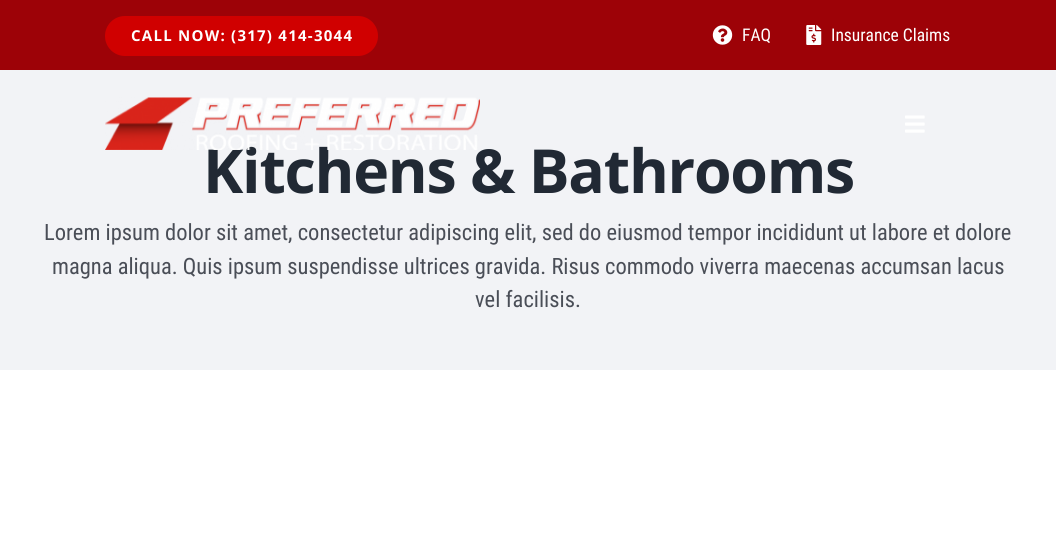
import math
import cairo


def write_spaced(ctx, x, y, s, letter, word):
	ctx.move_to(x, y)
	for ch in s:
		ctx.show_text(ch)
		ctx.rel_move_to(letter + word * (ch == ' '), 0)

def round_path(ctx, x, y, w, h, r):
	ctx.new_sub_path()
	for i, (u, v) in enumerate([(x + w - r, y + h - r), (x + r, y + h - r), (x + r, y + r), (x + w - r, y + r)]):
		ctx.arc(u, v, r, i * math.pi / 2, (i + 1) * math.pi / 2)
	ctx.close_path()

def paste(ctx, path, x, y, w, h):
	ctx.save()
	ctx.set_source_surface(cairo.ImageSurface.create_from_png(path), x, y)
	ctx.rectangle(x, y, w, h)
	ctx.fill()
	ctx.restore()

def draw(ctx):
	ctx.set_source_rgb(1, 1, 1)
	ctx.paint()
	ctx.set_source_rgb(0.616, 0.008, 0.031)
	ctx.rectangle(0, 0, 1056, 70)
	ctx.fill()
	ctx.set_source_rgb(0.816, 0, 0)
	round_path(ctx, 105, 16, 273, 40, 20)
	ctx.fill()
	ctx.select_font_face('Open Sans', cairo.FONT_SLANT_NORMAL, cairo.FONT_WEIGHT_BOLD)
	ctx.set_font_size(15)
	ctx.set_source_rgb(1, 1, 1)
	write_spaced(ctx, 131, 41, 'CALL NOW: (317) 414-3044', 1.25, 0)
	paste(ctx, 'media/1.png', 712, 25, 21, 20)
	ctx.select_font_face('Roboto Condensed')
	ctx.set_font_size(17.5)
	ctx.move_to(742, 41)
	ctx.show_text('FAQ')
	paste(ctx, 'media/2.png', 806, 25, 16, 20)
	ctx.move_to(831, 41)
	ctx.show_text('Insurance Claims')
	ctx.set_source_rgb(0.949, 0.953, 0.961)
	ctx.rectangle(0, 70, 1056, 300)
	ctx.fill()
	ctx.select_font_face('Open Sans', cairo.FONT_SLANT_NORMAL, cairo.FONT_WEIGHT_BOLD)
	ctx.set_font_size(60.75)
	ctx.set_source_rgb(0.129, 0.161, 0.204)
	write_spaced(ctx, 203, 193, 'Kitchens & Bathrooms', -1.25, 0)
	paste(ctx, 'media/3.png', 105, 97, 375, 53)
	paste(ctx, 'media/4.png', 905, 115, 20, 18)
	ctx.select_font_face('Roboto Condensed')
	ctx.set_font_size(22.5)
	ctx.set_source_rgb(0.29, 0.306, 0.341)
	for x, y, s in [
		(44, 240, 'Lorem ipsum dolor sit amet, consectetur adipiscing elit, sed do eiusmod tempor incididunt ut labore et dolore'),
		(52, 274, 'magna aliqua. Quis ipsum suspendisse ultrices gravida. Risus commodo viverra maecenas accumsan lacus'),
		(475, 307, 'vel facilisis.'),
	]:
		ctx.move_to(x, y)
		ctx.show_text(s)


surface = cairo.ImageSurface(cairo.FORMAT_RGB24, 1056, 551)
ctx = cairo.Context(surface)
options = cairo.FontOptions()
options.set_hint_metrics(cairo.HINT_METRICS_OFF)
options.set_hint_style(cairo.HINT_STYLE_NONE)
ctx.set_font_options(options)
ctx.set_miter_limit(4)
draw(ctx)
surface.write_to_png('image.png')
